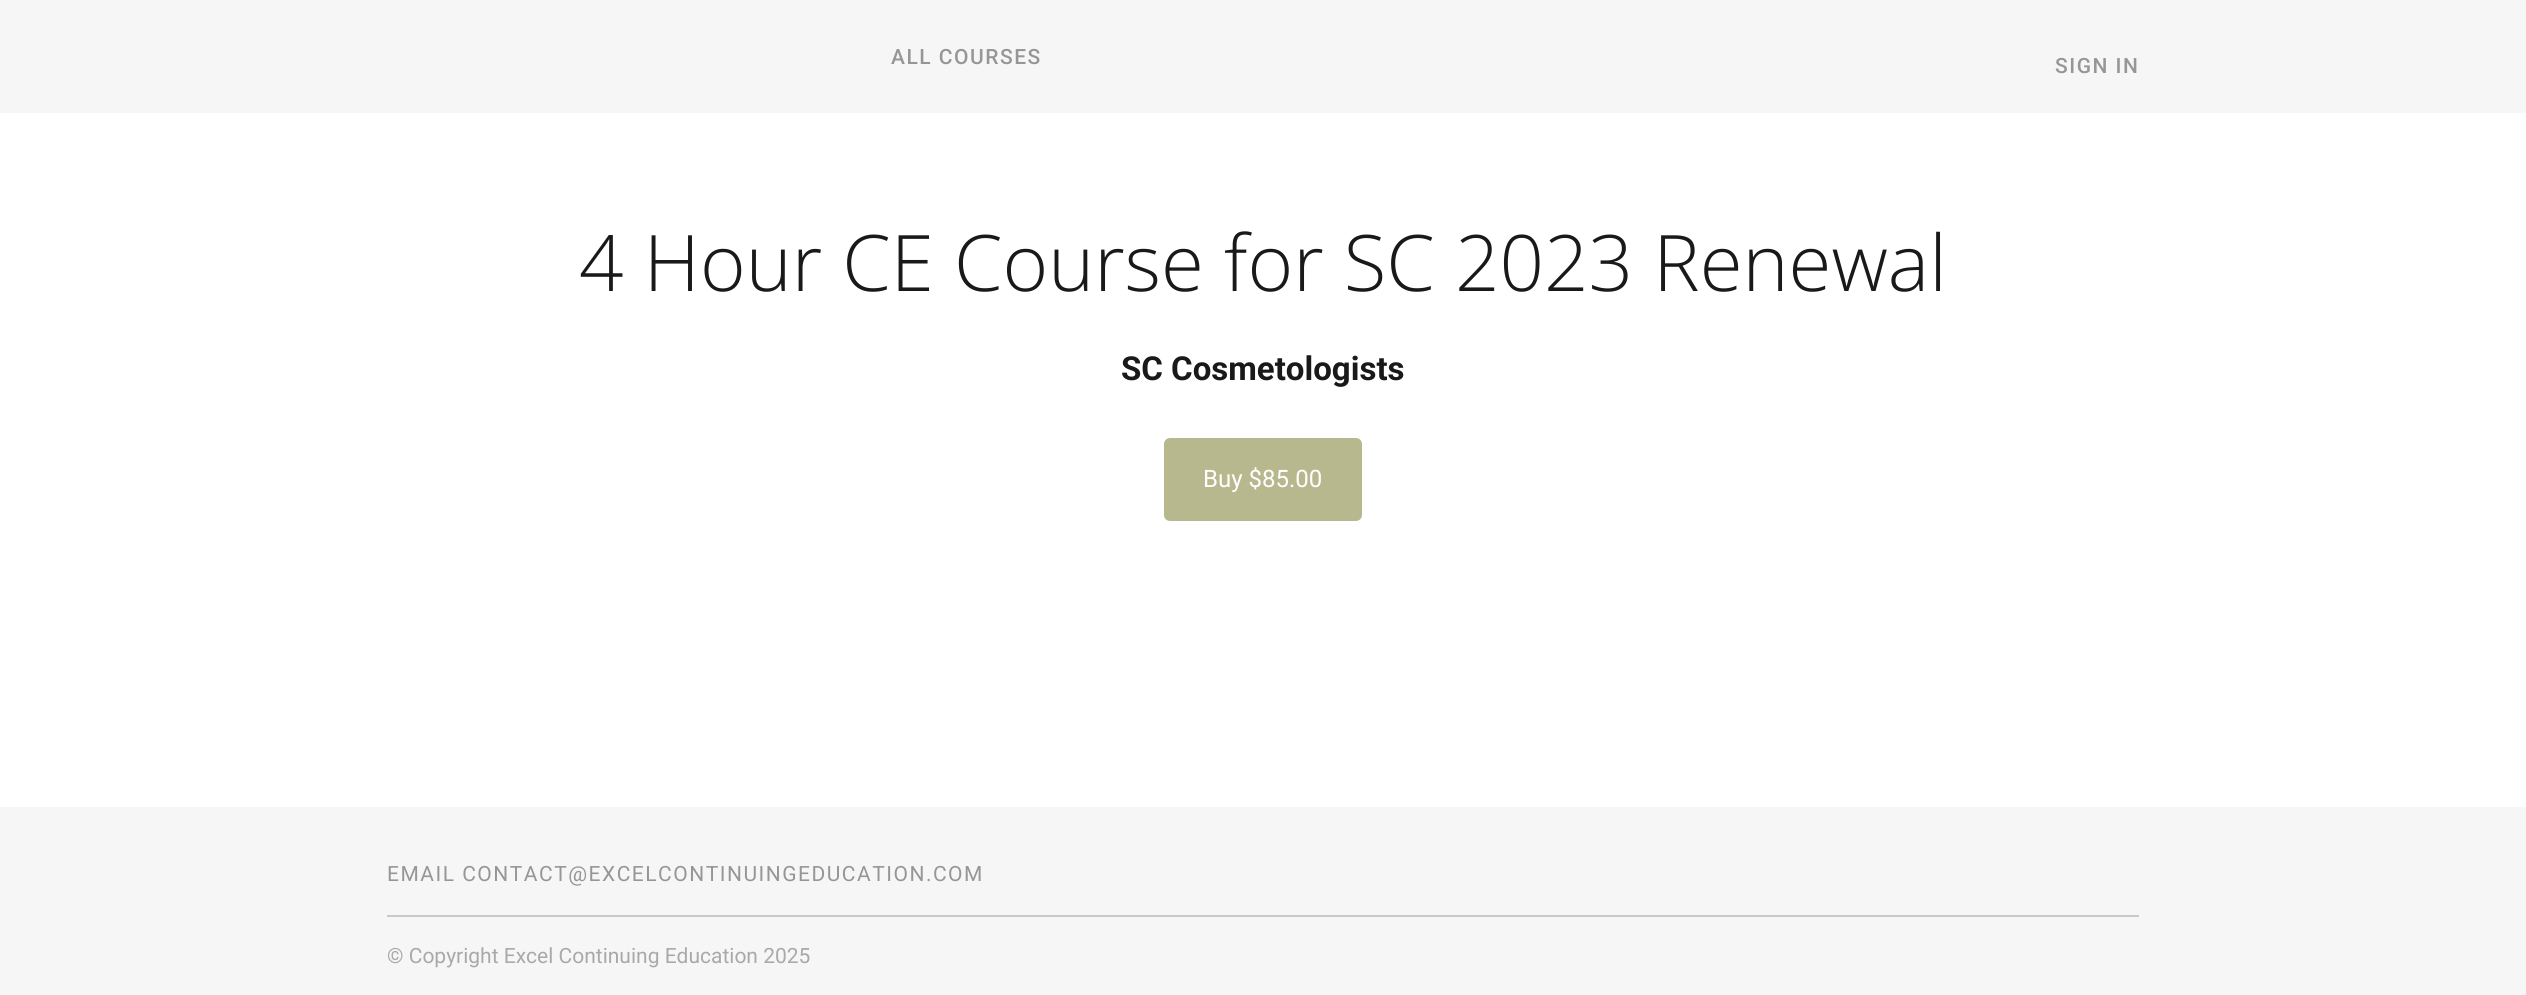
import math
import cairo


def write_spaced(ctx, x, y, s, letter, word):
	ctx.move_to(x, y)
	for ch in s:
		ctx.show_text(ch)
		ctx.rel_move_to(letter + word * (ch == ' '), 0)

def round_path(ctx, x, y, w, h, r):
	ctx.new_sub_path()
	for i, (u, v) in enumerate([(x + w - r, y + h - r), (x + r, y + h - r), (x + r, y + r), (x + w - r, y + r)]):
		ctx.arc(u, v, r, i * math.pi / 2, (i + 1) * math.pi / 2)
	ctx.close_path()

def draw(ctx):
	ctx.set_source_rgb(1, 1, 1)
	ctx.paint()
	ctx.set_source_rgb(0.961, 0.961, 0.961)
	ctx.rectangle(0, 0, 2526, 113)
	ctx.fill()
	ctx.select_font_face('Roboto Medium')
	ctx.set_font_size(21)
	ctx.set_source_rgb(0.588, 0.588, 0.588)
	write_spaced(ctx, 891, 64, 'ALL COURSES', 1.5, 0)
	write_spaced(ctx, 2055, 73, 'SIGN IN', 1.5, 0)
	ctx.select_font_face('Open Sans Light')
	ctx.set_font_size(78)
	ctx.set_source_rgb(0.098, 0.098, 0.098)
	ctx.move_to(579, 291)
	ctx.show_text('4 Hour CE Course for SC 2023 Renewal')
	ctx.select_font_face('Roboto', cairo.FONT_SLANT_NORMAL, cairo.FONT_WEIGHT_BOLD)
	ctx.set_font_size(33)
	ctx.move_to(1121, 380)
	ctx.show_text('SC Cosmetologists')
	ctx.set_source_rgb(0.722, 0.722, 0.561)
	round_path(ctx, 1164, 438, 198, 83, 6)
	ctx.fill()
	ctx.select_font_face('Roboto')
	ctx.set_font_size(24)
	ctx.set_source_rgb(1, 1, 1)
	ctx.move_to(1203, 487)
	ctx.show_text('Buy $85.00')
	ctx.set_source_rgb(0.961, 0.961, 0.961)
	ctx.rectangle(0, 807, 2526, 188)
	ctx.fill()
	ctx.set_font_size(21)
	ctx.set_source_rgb(0.588, 0.588, 0.588)
	write_spaced(ctx, 387, 881, 'EMAIL CONTACT@EXCELCONTINUINGEDUCATION.COM', 1.5, 0)
	ctx.set_source_rgb(0.788, 0.788, 0.788)
	ctx.rectangle(387, 915, 1752, 2)
	ctx.fill()
	ctx.set_source_rgb(0.663, 0.663, 0.663)
	ctx.move_to(387, 963)
	ctx.show_text('© Copyright Excel Continuing Education 2025')


surface = cairo.ImageSurface(cairo.FORMAT_RGB24, 2526, 995)
ctx = cairo.Context(surface)
options = cairo.FontOptions()
options.set_hint_metrics(cairo.HINT_METRICS_OFF)
options.set_hint_style(cairo.HINT_STYLE_NONE)
ctx.set_font_options(options)
ctx.set_miter_limit(4)
draw(ctx)
surface.write_to_png('image.png')
